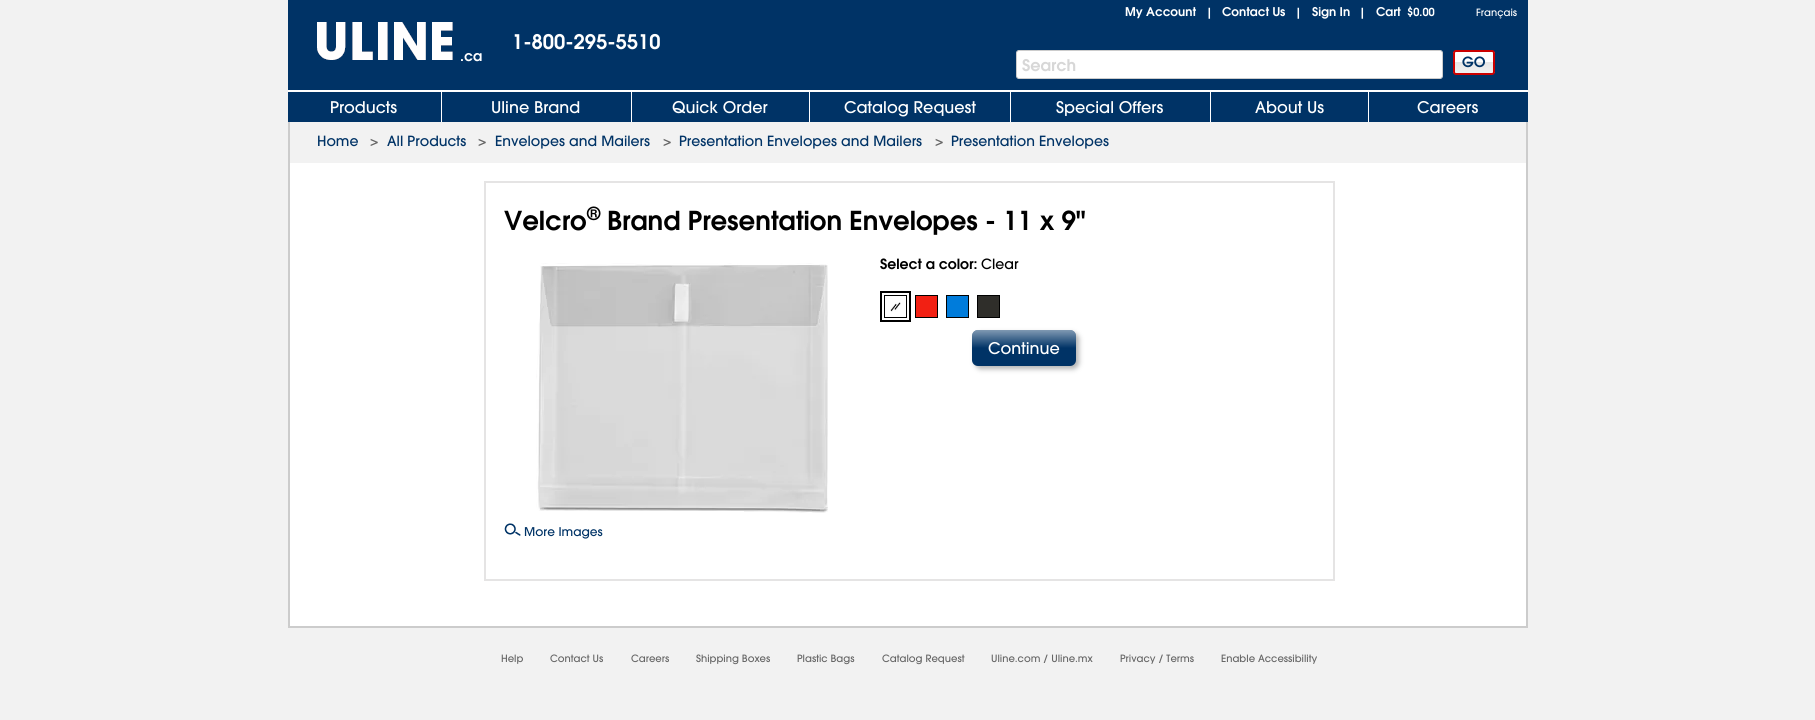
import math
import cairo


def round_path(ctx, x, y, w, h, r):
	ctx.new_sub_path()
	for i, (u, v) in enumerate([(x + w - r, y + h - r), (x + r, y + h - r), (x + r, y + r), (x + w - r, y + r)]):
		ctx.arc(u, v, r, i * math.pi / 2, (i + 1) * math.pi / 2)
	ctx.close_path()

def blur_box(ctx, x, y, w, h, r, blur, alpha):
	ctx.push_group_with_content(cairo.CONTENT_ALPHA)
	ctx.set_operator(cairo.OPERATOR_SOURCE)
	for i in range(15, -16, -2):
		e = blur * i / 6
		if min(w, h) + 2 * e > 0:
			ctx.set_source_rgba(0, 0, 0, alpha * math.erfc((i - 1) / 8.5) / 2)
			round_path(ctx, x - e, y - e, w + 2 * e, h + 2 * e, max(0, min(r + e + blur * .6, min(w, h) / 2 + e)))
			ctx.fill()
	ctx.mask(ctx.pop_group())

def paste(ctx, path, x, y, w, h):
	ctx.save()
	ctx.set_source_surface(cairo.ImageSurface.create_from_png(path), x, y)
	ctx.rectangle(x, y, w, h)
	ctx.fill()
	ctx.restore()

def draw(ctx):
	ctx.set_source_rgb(0.949, 0.949, 0.949)
	ctx.paint()
	ctx.set_source_rgb(1, 1, 1)
	ctx.rectangle(290, 163, 1236, 463)
	ctx.fill()
	ctx.set_source_rgb(0, 0.2, 0.4)
	ctx.rectangle(288, 0, 1240, 122)
	ctx.fill()
	ctx.select_font_face('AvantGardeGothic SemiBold')
	ctx.set_font_size(12)
	ctx.set_source_rgb(1, 1, 1)
	ctx.move_to(1125, 16)
	ctx.show_text('My Account')
	ctx.set_font_size(11)
	ctx.move_to(1206, 16)
	ctx.show_text('|')
	ctx.set_font_size(12)
	ctx.move_to(1222, 16)
	ctx.show_text('Contact Us')
	ctx.set_font_size(11)
	ctx.move_to(1295, 16)
	ctx.show_text('|')
	ctx.set_font_size(12)
	ctx.move_to(1312, 16)
	ctx.show_text('Sign In')
	ctx.set_font_size(11)
	ctx.move_to(1359, 16)
	ctx.show_text('|')
	ctx.set_font_size(12)
	ctx.move_to(1376, 16)
	ctx.show_text('Cart')
	ctx.set_font_size(11)
	ctx.move_to(1407, 16)
	ctx.show_text('$0.00')
	ctx.select_font_face('AvantGardeGothic Medium')
	ctx.set_font_size(10)
	ctx.move_to(1476, 16)
	ctx.show_text('Français')
	ctx.select_font_face('AvantGardeGothic SemiBold')
	ctx.set_font_size(20)
	ctx.move_to(512, 49)
	ctx.show_text('1-800-295-5510')
	paste(ctx, 'media/1.png', 317, 22, 136, 38)
	ctx.set_font_size(14)
	ctx.move_to(460, 61)
	ctx.show_text('.ca')
	round_path(ctx, 1016.5, 50.5, 426, 28, 2.5)
	ctx.fill_preserve()
	ctx.set_source_rgb(0.8, 0.8, 0.8)
	ctx.set_line_width(1)
	ctx.stroke()
	ctx.set_font_size(16)
	ctx.set_source_rgb(0.843, 0.843, 0.843)
	ctx.move_to(1022, 71)
	ctx.show_text('Search')
	ctx.save()
	round_path(ctx, 1453, 50, 42, 25, 3)
	ctx.clip()
	gradient = cairo.LinearGradient(1474, 52, 1474, 73)
	gradient.add_color_stop_rgba(0.5, 1, 1, 1, 1)
	gradient.add_color_stop_rgba(0.5, 0.906, 0.906, 0.906, 1)
	gradient.add_color_stop_rgba(1, 0.945, 0.945, 0.945, 1)
	ctx.set_source(gradient)
	ctx.rectangle(1453, 52, 42, 21)
	ctx.fill()
	ctx.restore()
	round_path(ctx, 1454, 51, 40, 23, 2)
	ctx.set_source_rgb(0.8, 0, 0)
	ctx.set_line_width(2)
	ctx.stroke()
	ctx.set_font_size(14)
	ctx.set_source_rgb(0, 0.2, 0.4)
	ctx.move_to(1462, 67)
	ctx.show_text('GO')
	ctx.set_source_rgb(1, 1, 1)
	ctx.rectangle(288, 90, 1240, 2)
	ctx.fill()
	ctx.rectangle(441, 92, 1, 30)
	ctx.fill()
	ctx.select_font_face('AvantGardeGothic Medium')
	ctx.set_font_size(16)
	ctx.move_to(330, 113)
	ctx.show_text('Products')
	ctx.rectangle(631, 92, 1, 30)
	ctx.fill()
	ctx.move_to(491, 113)
	ctx.show_text('Uline Brand')
	ctx.rectangle(809, 92, 1, 30)
	ctx.fill()
	ctx.move_to(672, 113)
	ctx.show_text('Quick Order')
	ctx.rectangle(1010, 92, 1, 30)
	ctx.fill()
	ctx.move_to(844, 113)
	ctx.show_text('Catalog Request')
	ctx.rectangle(1210, 92, 1, 30)
	ctx.fill()
	ctx.move_to(1056, 113)
	ctx.show_text('Special Offers')
	ctx.rectangle(1368, 92, 1, 30)
	ctx.fill()
	ctx.move_to(1255, 113)
	ctx.show_text('About Us')
	ctx.move_to(1417, 113)
	ctx.show_text('Careers')
	ctx.set_source_rgb(0.8, 0.8, 0.8)
	ctx.rectangle(1526, 122, 2, 506)
	ctx.rectangle(288, 626, 1240, 2)
	ctx.rectangle(288, 122, 2, 506)
	ctx.fill()
	ctx.set_font_size(14)
	ctx.set_source_rgb(0, 0.2, 0.4)
	ctx.move_to(317, 146)
	ctx.show_text('Home')
	ctx.set_source_rgb(0.4, 0.4, 0.4)
	ctx.move_to(370, 146)
	ctx.show_text('>')
	ctx.set_source_rgb(0, 0.2, 0.4)
	ctx.move_to(387, 146)
	ctx.show_text('All Products')
	ctx.set_source_rgb(0.4, 0.4, 0.4)
	ctx.move_to(478, 146)
	ctx.show_text('>')
	ctx.set_source_rgb(0, 0.2, 0.4)
	ctx.move_to(495, 146)
	ctx.show_text('Envelopes and Mailers')
	ctx.set_source_rgb(0.4, 0.4, 0.4)
	ctx.move_to(663, 146)
	ctx.show_text('>')
	ctx.set_source_rgb(0, 0.2, 0.4)
	ctx.move_to(679, 146)
	ctx.show_text('Presentation Envelopes and Mailers')
	ctx.set_source_rgb(0.4, 0.4, 0.4)
	ctx.move_to(935, 146)
	ctx.show_text('>')
	ctx.set_source_rgb(0, 0.2, 0.4)
	ctx.move_to(951, 146)
	ctx.show_text('Presentation Envelopes')
	ctx.rectangle(485, 182, 849, 398)
	ctx.set_source_rgb(0.898, 0.894, 0.894)
	ctx.stroke()
	ctx.select_font_face('AvantGardeGothic SemiBold')
	ctx.set_font_size(26)
	ctx.set_source_rgb(0, 0, 0)
	ctx.move_to(504, 230)
	ctx.show_text('Velcro')
	ctx.set_font_size(18)
	ctx.move_to(587, 220)
	ctx.show_text('®')
	ctx.set_font_size(26)
	ctx.move_to(607, 230)
	ctx.show_text('Brand Presentation Envelopes - 11 x 9"')
	ctx.set_font_size(14)
	ctx.move_to(880, 269)
	ctx.show_text('Select a color:')
	ctx.select_font_face('AvantGardeGothic Medium')
	ctx.move_to(981, 269)
	ctx.show_text('Clear')
	ctx.rectangle(881, 292, 29, 29)
	ctx.stroke()
	paste(ctx, 'media/2.png', 890, 302, 11, 10)
	ctx.rectangle(884.5, 295.5, 22, 22)
	ctx.set_line_width(1)
	ctx.stroke()
	ctx.set_source_rgb(0.949, 0.125, 0.075)
	ctx.rectangle(915.5, 295.5, 22, 22)
	ctx.fill_preserve()
	ctx.set_source_rgb(0, 0, 0)
	ctx.stroke()
	ctx.set_source_rgb(0, 0.486, 0.859)
	ctx.rectangle(946.5, 295.5, 22, 22)
	ctx.fill_preserve()
	ctx.set_source_rgb(0, 0, 0)
	ctx.stroke()
	ctx.set_source_rgb(0.184, 0.18, 0.165)
	ctx.rectangle(977.5, 295.5, 22, 22)
	ctx.fill_preserve()
	ctx.set_source_rgb(0, 0, 0)
	ctx.stroke()
	ctx.set_source_rgb(0.706, 0.71, 0.71)
	blur_box(ctx, 975, 333, 104, 36, 6, 2.5, 1)
	ctx.set_source_rgb(0, 0.2, 0.4)
	round_path(ctx, 972, 330, 104, 36, 6)
	ctx.fill()
	gradient = cairo.LinearGradient(1024, 330, 1024, 366)
	gradient.add_color_stop_rgba(0, 1, 1, 1, 0.5)
	gradient.add_color_stop_rgba(0.5, 1, 1, 1, 0)
	ctx.set_source(gradient)
	round_path(ctx, 972, 330, 104, 36, 6)
	ctx.fill()
	ctx.set_font_size(16)
	ctx.set_source_rgb(1, 1, 1)
	ctx.move_to(988, 354)
	ctx.show_text('Continue')
	paste(ctx, 'media/3.png', 536, 263, 292, 250)
	paste(ctx, 'media/4.png', 504, 523, 17, 13)
	ctx.set_font_size(12)
	ctx.set_source_rgb(0, 0.2, 0.4)
	ctx.move_to(524, 536)
	ctx.show_text('More Images')
	ctx.set_font_size(10)
	ctx.set_source_rgb(0.4, 0.4, 0.4)
	for x, y, s in [
		(501, 662, 'Help'),
		(550, 662, 'Contact Us'),
		(631, 662, 'Careers'),
		(696, 662, 'Shipping Boxes'),
		(797, 662, 'Plastic Bags'),
		(882, 662, 'Catalog Request'),
		(991, 662, 'Uline.com / Uline.mx'),
		(1120, 662, 'Privacy / Terms'),
		(1221, 662, 'Enable Accessibility'),
	]:
		ctx.move_to(x, y)
		ctx.show_text(s)


surface = cairo.ImageSurface(cairo.FORMAT_RGB24, 1815, 720)
ctx = cairo.Context(surface)
options = cairo.FontOptions()
options.set_hint_metrics(cairo.HINT_METRICS_OFF)
options.set_hint_style(cairo.HINT_STYLE_NONE)
ctx.set_font_options(options)
ctx.set_miter_limit(4)
draw(ctx)
surface.write_to_png('image.png')
